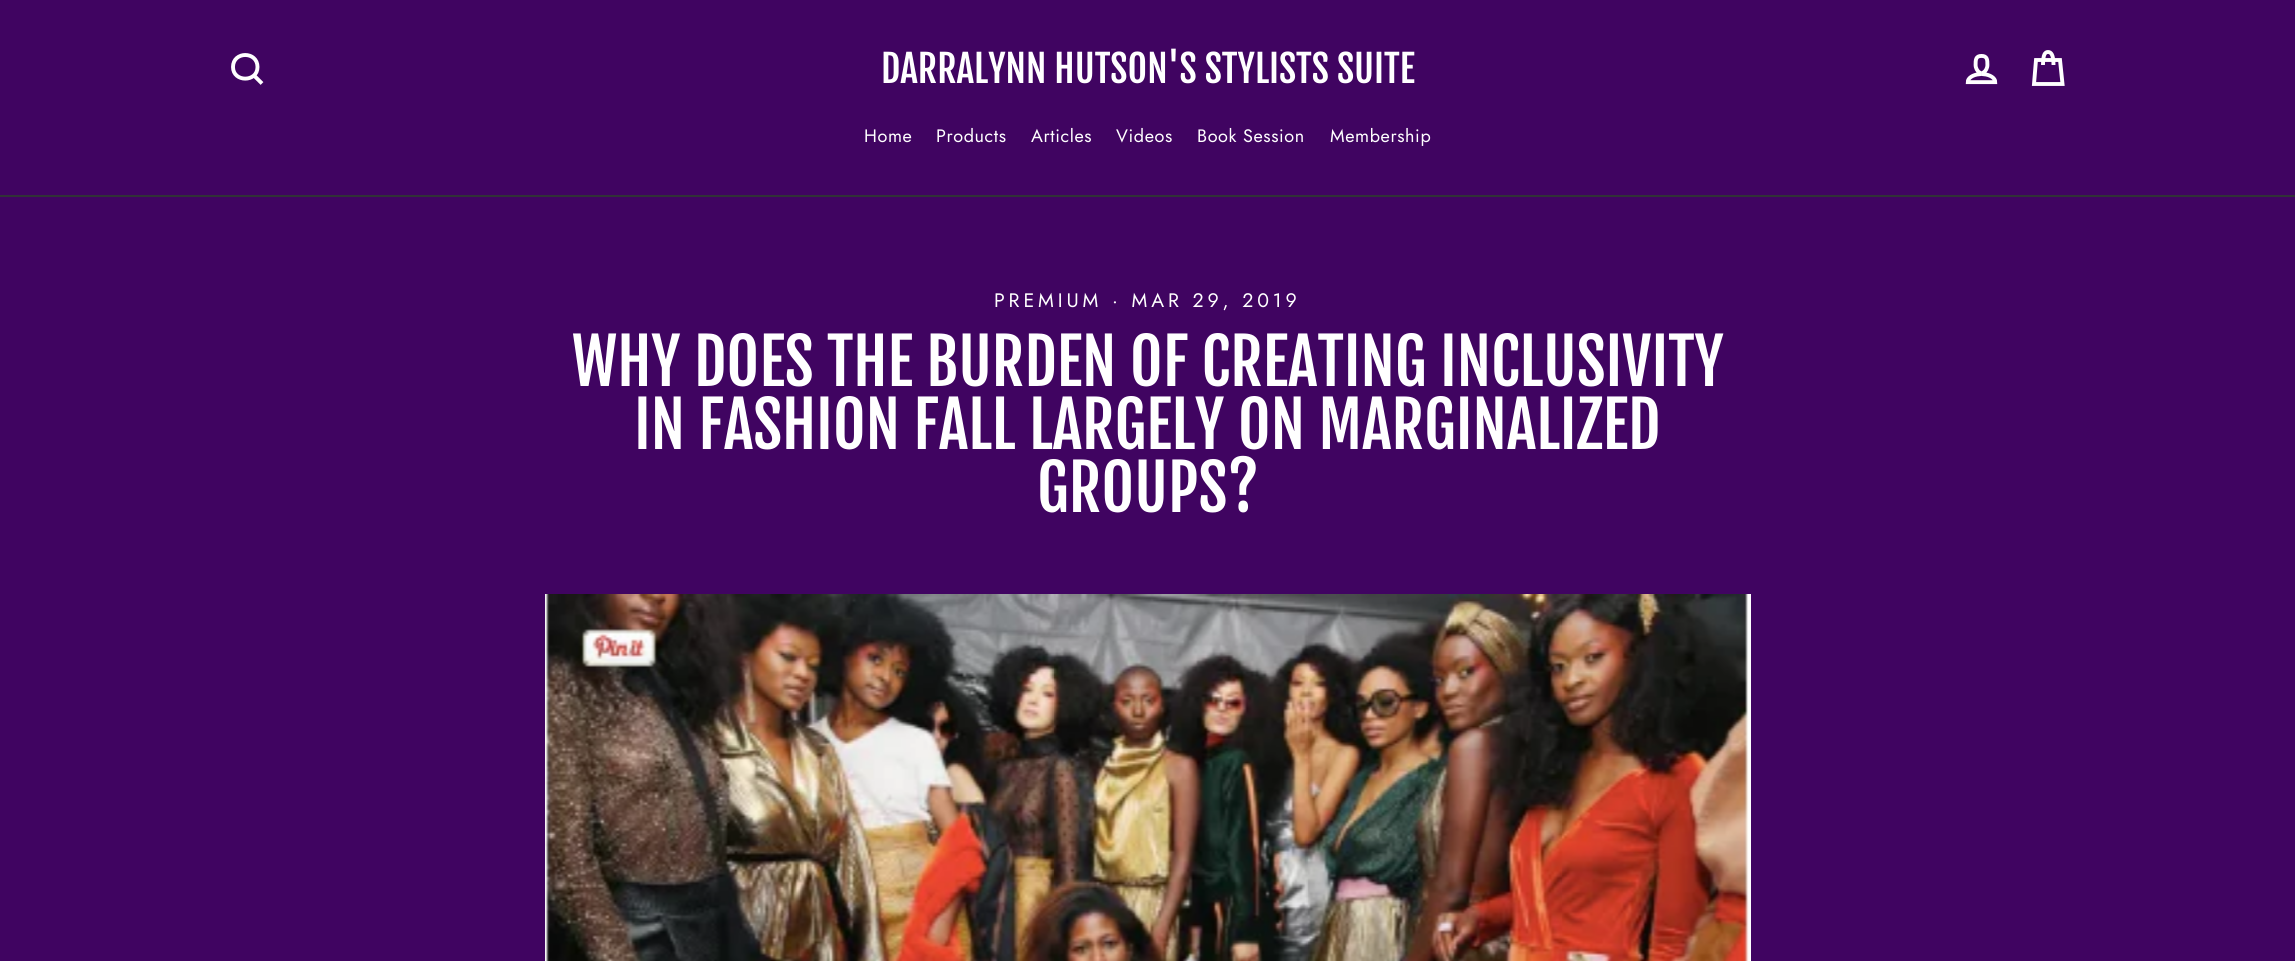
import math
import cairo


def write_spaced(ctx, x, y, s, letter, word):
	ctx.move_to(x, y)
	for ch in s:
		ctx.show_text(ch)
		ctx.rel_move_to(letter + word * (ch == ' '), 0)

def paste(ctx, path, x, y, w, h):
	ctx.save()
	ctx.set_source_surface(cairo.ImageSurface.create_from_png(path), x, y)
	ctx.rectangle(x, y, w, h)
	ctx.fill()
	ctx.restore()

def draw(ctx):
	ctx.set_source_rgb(0.251, 0.016, 0.38)
	ctx.paint()
	ctx.set_source_rgb(0.192, 0.196, 0.216)
	ctx.rectangle(0, 195, 2295, 2)
	ctx.fill()
	ctx.new_path()
	ctx.move_to(257.5, 67)
	ctx.curve_to(257.5, 82.5, 233, 82.5, 233, 67)
	ctx.curve_to(233, 51, 257.5, 51, 257.5, 67)
	ctx.close_path()
	ctx.move_to(262, 83.5)
	ctx.line_to(254, 75.5)
	ctx.set_source_rgb(1, 1, 1)
	ctx.set_line_width(3.9)
	ctx.stroke()
	ctx.select_font_face('Fjalla One')
	ctx.set_font_size(37.5)
	ctx.move_to(881, 83)
	ctx.show_text('DARRALYNN HUTSON\'S STYLISTS SUITE')
	paste(ctx, 'media/1.png', 1965, 54, 33, 31)
	ctx.new_path()
	ctx.move_to(2043, 65)
	ctx.curve_to(2043, 54.5, 2045, 52, 2048, 52)
	ctx.curve_to(2051, 52, 2053.5, 54.5, 2053.5, 65)
	ctx.move_to(2036, 60)
	ctx.line_to(2060, 60)
	ctx.line_to(2062.5, 84)
	ctx.line_to(2034, 84)
	ctx.close_path()
	ctx.stroke()
	ctx.select_font_face('Jost')
	ctx.set_font_size(18)
	for x, y, s in [
		(864, 142, 'Home'),
		(936, 142, 'Products'),
		(1031, 142, 'Articles'),
		(1116, 142, 'Videos'),
		(1197, 142, 'Book Session'),
		(1330, 142, 'Membership'),
	]:
		write_spaced(ctx, x, y, s, 0.6, 0)
	ctx.set_font_size(19.5)
	write_spaced(ctx, 994, 307, 'PREMIUM · MAR 29, 2019', 3.9, 0)
	ctx.select_font_face('Fjalla One')
	ctx.set_font_size(63)
	for x, y, s in [
		(572, 386, 'WHY DOES THE BURDEN OF CREATING INCLUSIVITY'),
		(634, 449, 'IN FASHION FALL LARGELY ON MARGINALIZED'),
		(1037, 512, 'GROUPS?'),
	]:
		ctx.move_to(x, y)
		ctx.show_text(s)
	ctx.rectangle(1748, 594, 3, 367)
	ctx.fill()
	paste(ctx, 'media/2.png', 545, 594, 1205, 367)


surface = cairo.ImageSurface(cairo.FORMAT_RGB24, 2295, 961)
ctx = cairo.Context(surface)
options = cairo.FontOptions()
options.set_hint_metrics(cairo.HINT_METRICS_OFF)
options.set_hint_style(cairo.HINT_STYLE_NONE)
ctx.set_font_options(options)
ctx.set_miter_limit(4)
draw(ctx)
surface.write_to_png('image.png')
